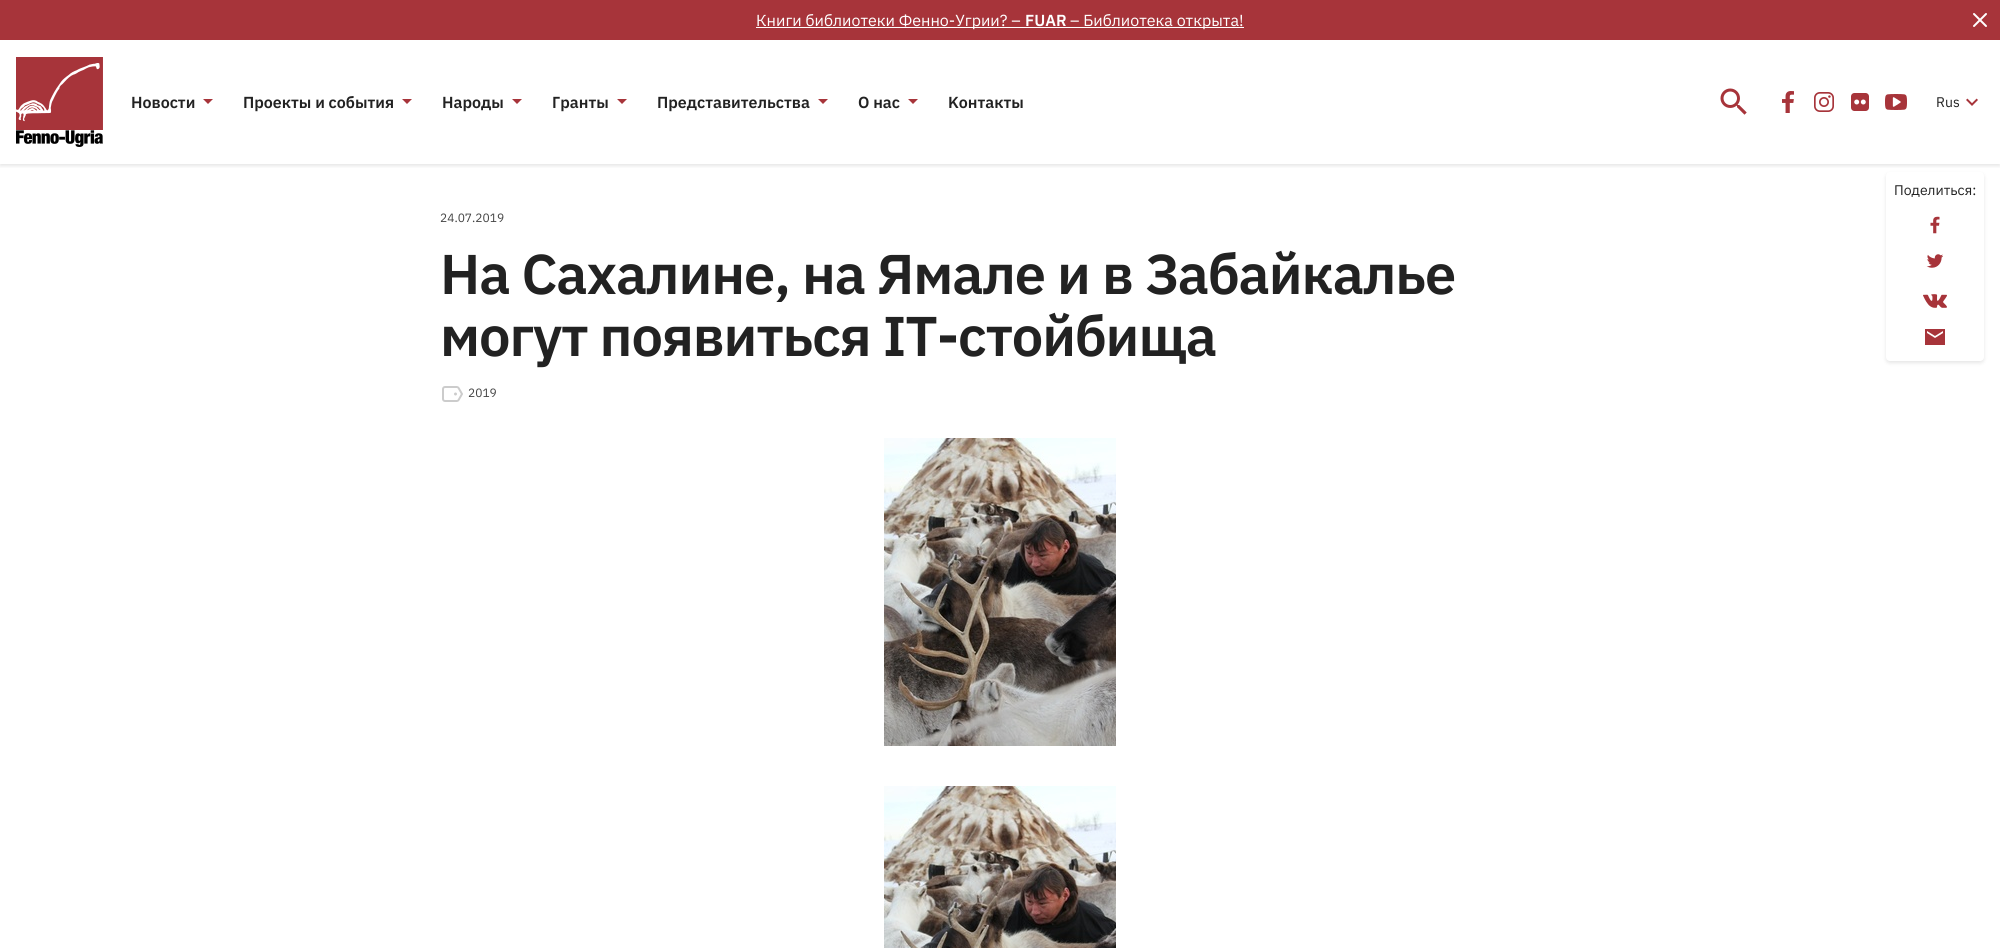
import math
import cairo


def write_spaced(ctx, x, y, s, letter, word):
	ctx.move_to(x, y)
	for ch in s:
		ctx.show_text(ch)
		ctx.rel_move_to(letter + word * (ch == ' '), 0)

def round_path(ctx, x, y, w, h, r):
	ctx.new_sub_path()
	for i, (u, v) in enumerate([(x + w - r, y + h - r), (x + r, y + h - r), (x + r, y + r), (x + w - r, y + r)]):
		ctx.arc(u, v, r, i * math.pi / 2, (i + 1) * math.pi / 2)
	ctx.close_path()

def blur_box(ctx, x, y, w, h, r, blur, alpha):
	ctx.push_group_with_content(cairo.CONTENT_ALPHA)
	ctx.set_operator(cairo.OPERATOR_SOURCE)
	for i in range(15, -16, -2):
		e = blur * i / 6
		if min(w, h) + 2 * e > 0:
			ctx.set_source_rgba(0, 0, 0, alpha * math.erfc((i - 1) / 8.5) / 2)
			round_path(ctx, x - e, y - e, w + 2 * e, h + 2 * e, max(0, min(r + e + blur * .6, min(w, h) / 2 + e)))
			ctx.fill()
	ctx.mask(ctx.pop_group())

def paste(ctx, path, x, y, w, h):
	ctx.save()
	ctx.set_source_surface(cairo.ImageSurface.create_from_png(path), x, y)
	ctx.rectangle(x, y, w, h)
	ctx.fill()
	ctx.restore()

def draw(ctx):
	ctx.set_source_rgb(1, 1, 1)
	ctx.paint()
	ctx.set_source_rgb(0.655, 0.204, 0.227)
	ctx.rectangle(0, 0, 2000, 40)
	ctx.fill()
	ctx.set_source_rgb(1, 1, 1)
	ctx.rectangle(756, 27, 488, 1)
	ctx.fill()
	ctx.select_font_face('IBM Plex Sans')
	ctx.set_font_size(16)
	ctx.move_to(756, 26)
	ctx.show_text('Книги библиотеки Фенно-Угрии? –')
	ctx.select_font_face('IBM Plex Sans SemiBold')
	ctx.move_to(1025, 26)
	ctx.show_text('FUAR')
	ctx.select_font_face('IBM Plex Sans')
	ctx.move_to(1070, 26)
	ctx.show_text('– Библиотека открыта!')
	paste(ctx, 'media/1.png', 1973, 13, 14, 14)
	ctx.set_source_rgb(0, 0, 0)
	blur_box(ctx, 1886, 174, 98, 189, 4, 2, 0.1)
	ctx.set_source_rgb(1, 1, 1)
	round_path(ctx, 1886, 172, 98, 189, 4)
	ctx.fill()
	ctx.save()
	ctx.rectangle(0, 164, 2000, 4)
	ctx.clip()
	ctx.set_source_rgb(0, 0, 0)
	blur_box(ctx, 0, 42, 2000, 124, 0, 2, 0.1)
	ctx.restore()
	paste(ctx, 'media/2.png', 16, 57, 87, 90)
	ctx.select_font_face('IBM Plex Sans SemiBold')
	ctx.set_source_rgb(0.133, 0.133, 0.133)
	ctx.move_to(131, 108)
	ctx.show_text('Новости')
	ctx.set_source_rgb(0.655, 0.204, 0.227)
	ctx.set_fill_rule(cairo.FILL_RULE_EVEN_ODD)
	ctx.new_path()
	ctx.move_to(203, 99)
	ctx.line_to(208, 104)
	ctx.line_to(213, 99)
	ctx.close_path()
	ctx.fill()
	ctx.set_source_rgb(0.133, 0.133, 0.133)
	ctx.move_to(243, 108)
	ctx.show_text('Проекты и события')
	ctx.set_source_rgb(0.655, 0.204, 0.227)
	ctx.new_path()
	ctx.move_to(402, 99)
	ctx.line_to(407, 104)
	ctx.line_to(412, 99)
	ctx.close_path()
	ctx.fill()
	ctx.set_source_rgb(0.133, 0.133, 0.133)
	ctx.move_to(442, 108)
	ctx.show_text('Народы')
	ctx.set_source_rgb(0.655, 0.204, 0.227)
	ctx.new_path()
	ctx.move_to(512, 99)
	ctx.line_to(517, 104)
	ctx.line_to(522, 99)
	ctx.close_path()
	ctx.fill()
	ctx.set_source_rgb(0.133, 0.133, 0.133)
	ctx.move_to(552, 108)
	ctx.show_text('Гранты')
	ctx.set_source_rgb(0.655, 0.204, 0.227)
	ctx.new_path()
	ctx.move_to(617, 99)
	ctx.line_to(622, 104)
	ctx.line_to(627, 99)
	ctx.close_path()
	ctx.fill()
	ctx.set_source_rgb(0.133, 0.133, 0.133)
	ctx.move_to(657, 108)
	ctx.show_text('Представительства')
	ctx.set_source_rgb(0.655, 0.204, 0.227)
	ctx.new_path()
	ctx.move_to(818, 99)
	ctx.line_to(823, 104)
	ctx.line_to(828, 99)
	ctx.close_path()
	ctx.fill()
	ctx.set_source_rgb(0.133, 0.133, 0.133)
	ctx.move_to(858, 108)
	ctx.show_text('О нас')
	ctx.set_source_rgb(0.655, 0.204, 0.227)
	ctx.new_path()
	ctx.move_to(908, 99)
	ctx.line_to(913, 104)
	ctx.line_to(918, 99)
	ctx.close_path()
	ctx.fill()
	ctx.set_source_rgb(0.133, 0.133, 0.133)
	ctx.move_to(948, 108)
	ctx.show_text('Kонтакты')
	paste(ctx, 'media/3.png', 1720, 88, 27, 27)
	paste(ctx, 'media/4.png', 1782, 91, 12, 22)
	paste(ctx, 'media/5.png', 1814, 92, 20, 20)
	paste(ctx, 'media/6.png', 1851, 93, 18, 18)
	paste(ctx, 'media/7.png', 1885, 94, 22, 16)
	ctx.select_font_face('IBM Plex Sans')
	ctx.set_font_size(14)
	ctx.move_to(1936, 107)
	ctx.show_text('Rus')
	paste(ctx, 'media/8.png', 1966, 98, 12, 8)
	ctx.move_to(1894, 195)
	ctx.show_text('Поделиться:')
	paste(ctx, 'media/9.png', 1930, 216, 10, 18)
	paste(ctx, 'media/10.png', 1926, 254, 17, 14)
	paste(ctx, 'media/11.png', 1923, 294, 24, 14)
	paste(ctx, 'media/12.png', 1925, 329, 20, 16)
	ctx.set_font_size(12)
	ctx.set_source_rgb(0.267, 0.267, 0.267)
	ctx.move_to(440, 222)
	ctx.show_text('24.07.2019')
	ctx.select_font_face('IBM Plex Sans SemiBold')
	ctx.set_font_size(56)
	ctx.set_source_rgb(0.133, 0.133, 0.133)
	write_spaced(ctx, 440, 294, 'На Сахалине, на Ямале и в Забайкалье', -1.1, 0)
	write_spaced(ctx, 440, 356, 'могут появиться IT-стойбища', -1.1, 0)
	paste(ctx, 'media/13.png', 442, 386, 21, 16)
	ctx.select_font_face('IBM Plex Sans')
	ctx.set_font_size(12)
	ctx.set_source_rgb(0.267, 0.267, 0.267)
	ctx.move_to(468, 397)
	ctx.show_text('2019')
	paste(ctx, 'media/14.png', 884, 438, 232, 308)
	paste(ctx, 'media/15.png', 884, 786, 232, 162)


surface = cairo.ImageSurface(cairo.FORMAT_RGB24, 2000, 948)
ctx = cairo.Context(surface)
options = cairo.FontOptions()
options.set_hint_metrics(cairo.HINT_METRICS_OFF)
options.set_hint_style(cairo.HINT_STYLE_NONE)
ctx.set_font_options(options)
ctx.set_miter_limit(4)
draw(ctx)
surface.write_to_png('image.png')
